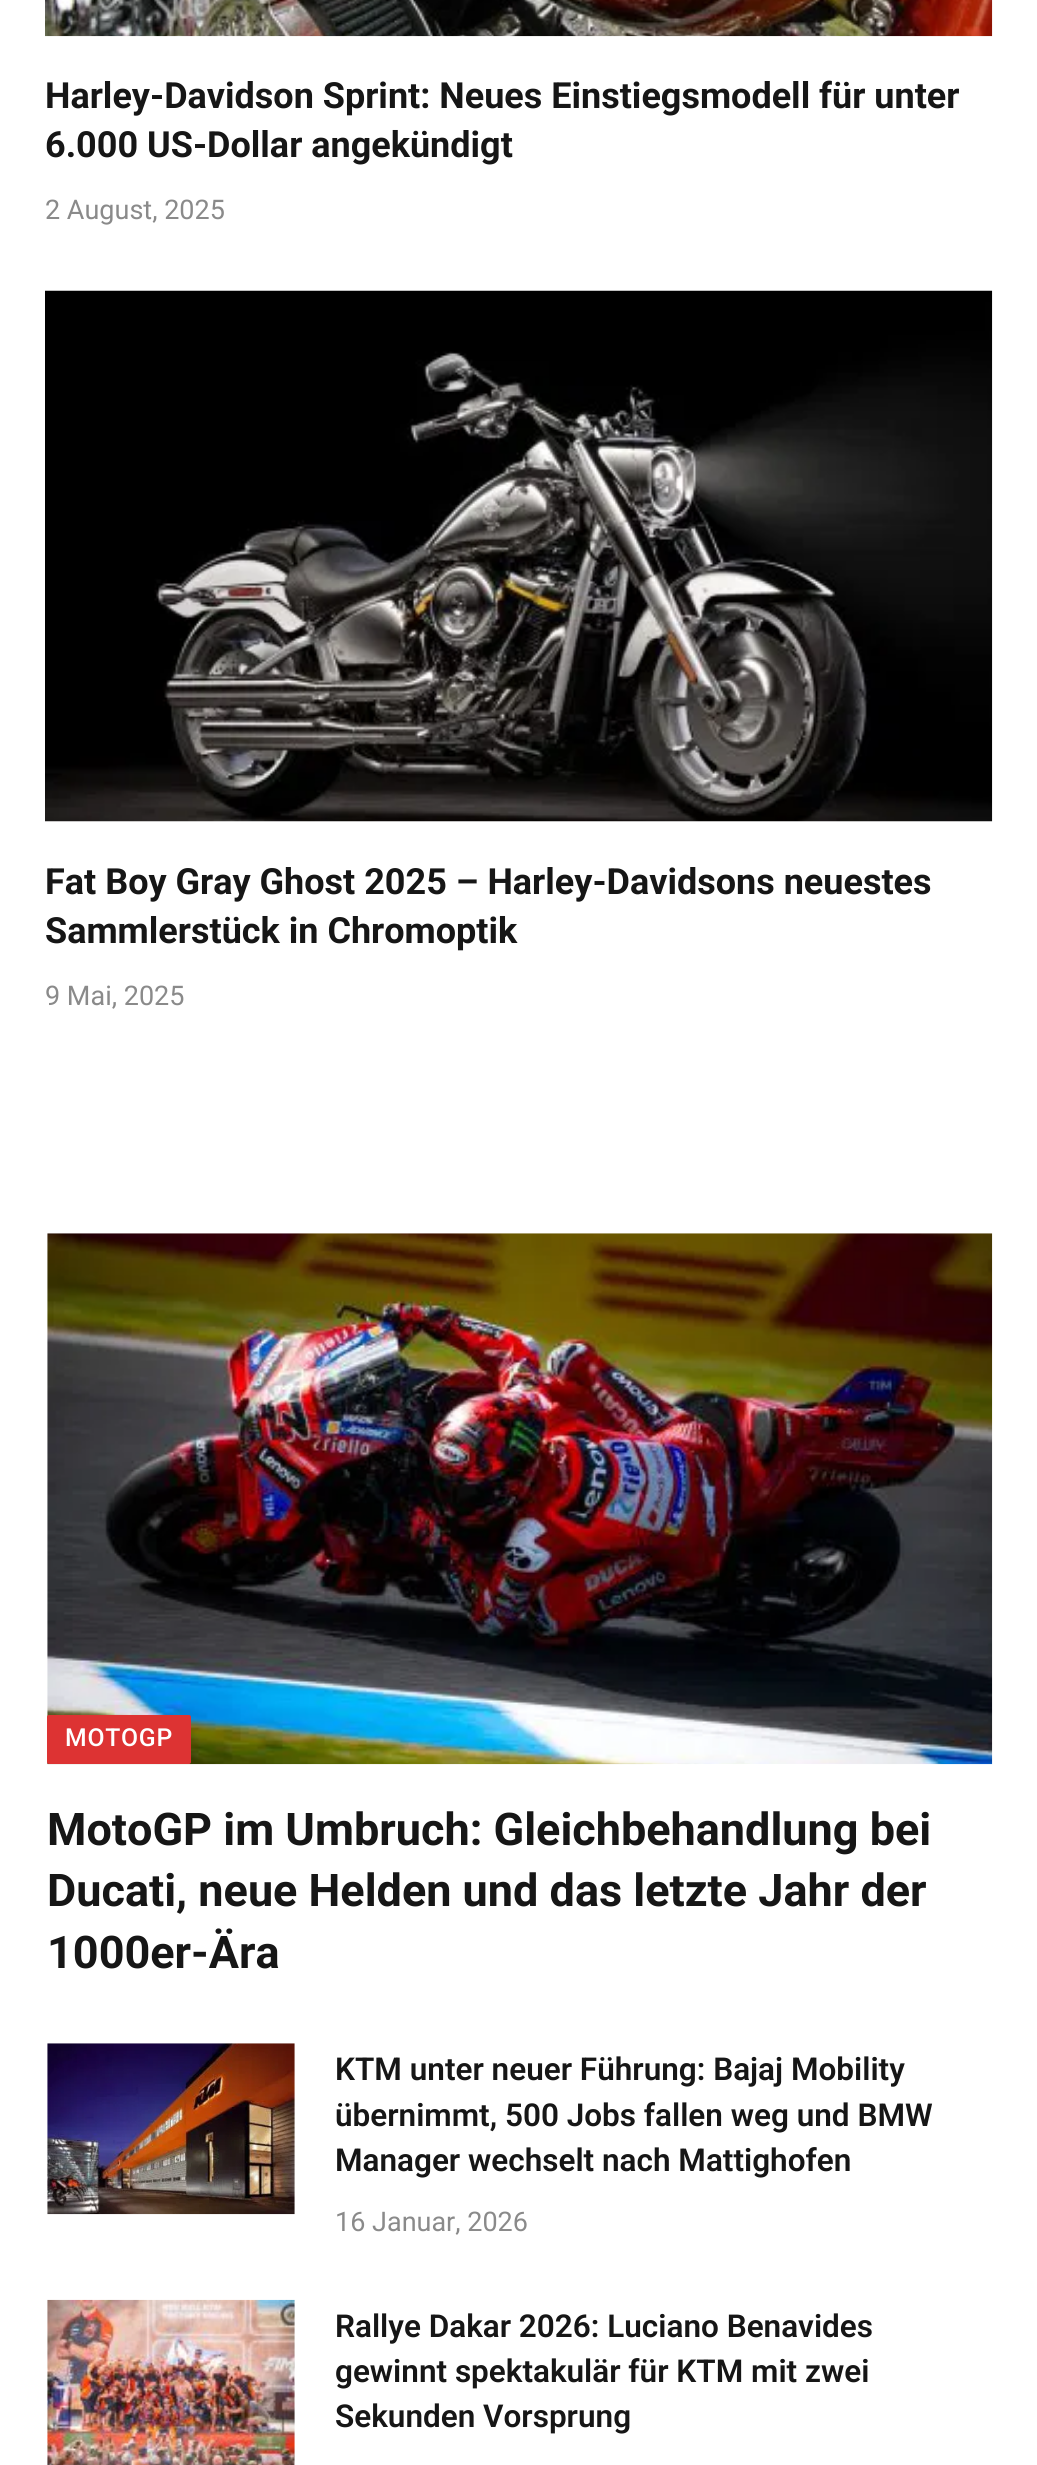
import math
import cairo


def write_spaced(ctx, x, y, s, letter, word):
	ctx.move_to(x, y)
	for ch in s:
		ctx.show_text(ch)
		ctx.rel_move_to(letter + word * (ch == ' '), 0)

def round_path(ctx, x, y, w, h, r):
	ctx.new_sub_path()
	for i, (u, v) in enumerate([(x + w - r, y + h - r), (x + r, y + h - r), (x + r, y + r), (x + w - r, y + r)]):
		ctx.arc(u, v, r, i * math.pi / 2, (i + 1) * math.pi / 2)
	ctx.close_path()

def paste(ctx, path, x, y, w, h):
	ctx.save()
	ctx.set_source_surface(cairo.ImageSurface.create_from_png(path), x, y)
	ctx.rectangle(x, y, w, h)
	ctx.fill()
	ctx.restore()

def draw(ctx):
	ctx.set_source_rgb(1, 1, 1)
	ctx.paint()
	paste(ctx, 'media/1.png', 45, 0, 948, 37)
	ctx.select_font_face('Roboto', cairo.FONT_SLANT_NORMAL, cairo.FONT_WEIGHT_BOLD)
	ctx.set_font_size(36)
	ctx.set_source_rgb(0.086, 0.086, 0.086)
	ctx.move_to(45, 108)
	ctx.show_text('Harley-Davidson Sprint: Neues Einstiegsmodell für unter')
	ctx.move_to(45, 157)
	ctx.show_text('6.000 US-Dollar angekündigt')
	ctx.select_font_face('Roboto')
	ctx.set_font_size(27)
	ctx.set_source_rgb(0.541, 0.541, 0.541)
	ctx.move_to(45, 219)
	ctx.show_text('2 August, 2025')
	paste(ctx, 'media/2.png', 45, 290, 948, 532)
	ctx.select_font_face('Roboto', cairo.FONT_SLANT_NORMAL, cairo.FONT_WEIGHT_BOLD)
	ctx.set_font_size(36)
	ctx.set_source_rgb(0.086, 0.086, 0.086)
	ctx.move_to(45, 894)
	ctx.show_text('Fat Boy Gray Ghost 2025 – Harley-Davidsons neuestes')
	ctx.move_to(45, 943)
	ctx.show_text('Sammlerstück in Chromoptik')
	ctx.select_font_face('Roboto')
	ctx.set_font_size(27)
	ctx.set_source_rgb(0.541, 0.541, 0.541)
	ctx.move_to(45, 1005)
	ctx.show_text('9 Mai, 2025')
	paste(ctx, 'media/3.png', 47, 1233, 946, 532)
	ctx.set_source_rgb(0.867, 0.2, 0.2)
	round_path(ctx, 47, 1715, 144, 49, 2)
	ctx.fill()
	ctx.select_font_face('Roboto Medium')
	ctx.set_font_size(24.75)
	ctx.set_source_rgb(1, 1, 1)
	write_spaced(ctx, 65, 1746, 'MOTOGP', 0.75, 0)
	ctx.select_font_face('Roboto', cairo.FONT_SLANT_NORMAL, cairo.FONT_WEIGHT_BOLD)
	ctx.set_font_size(45)
	ctx.set_source_rgb(0.086, 0.086, 0.086)
	for x, y, s in [
		(47, 1845, 'MotoGP im Umbruch: Gleichbehandlung bei'),
		(47, 1906, 'Ducati, neue Helden und das letzte Jahr der'),
		(47, 1968, '1000er-Ära'),
	]:
		ctx.move_to(x, y)
		ctx.show_text(s)
	paste(ctx, 'media/4.png', 47, 2043, 248, 172)
	ctx.select_font_face('Roboto SemiBold')
	ctx.set_font_size(31.5)
	for x, y, s in [
		(335, 2080, 'KTM unter neuer Führung: Bajaj Mobility'),
		(335, 2126, 'übernimmt, 500 Jobs fallen weg und BMW'),
		(335, 2171, 'Manager wechselt nach Mattighofen'),
	]:
		ctx.move_to(x, y)
		ctx.show_text(s)
	ctx.select_font_face('Roboto')
	ctx.set_font_size(27)
	ctx.set_source_rgb(0.541, 0.541, 0.541)
	ctx.move_to(335, 2231)
	ctx.show_text('16 Januar, 2026')
	paste(ctx, 'media/5.png', 47, 2299, 248, 166)
	ctx.select_font_face('Roboto SemiBold')
	ctx.set_font_size(31.5)
	ctx.set_source_rgb(0.086, 0.086, 0.086)
	for x, y, s in [
		(335, 2337, 'Rallye Dakar 2026: Luciano Benavides'),
		(335, 2382, 'gewinnt spektakulär für KTM mit zwei'),
		(335, 2427, 'Sekunden Vorsprung'),
	]:
		ctx.move_to(x, y)
		ctx.show_text(s)


surface = cairo.ImageSurface(cairo.FORMAT_RGB24, 1037, 2465)
ctx = cairo.Context(surface)
options = cairo.FontOptions()
options.set_hint_metrics(cairo.HINT_METRICS_OFF)
options.set_hint_style(cairo.HINT_STYLE_NONE)
ctx.set_font_options(options)
ctx.set_miter_limit(4)
draw(ctx)
surface.write_to_png('image.png')
